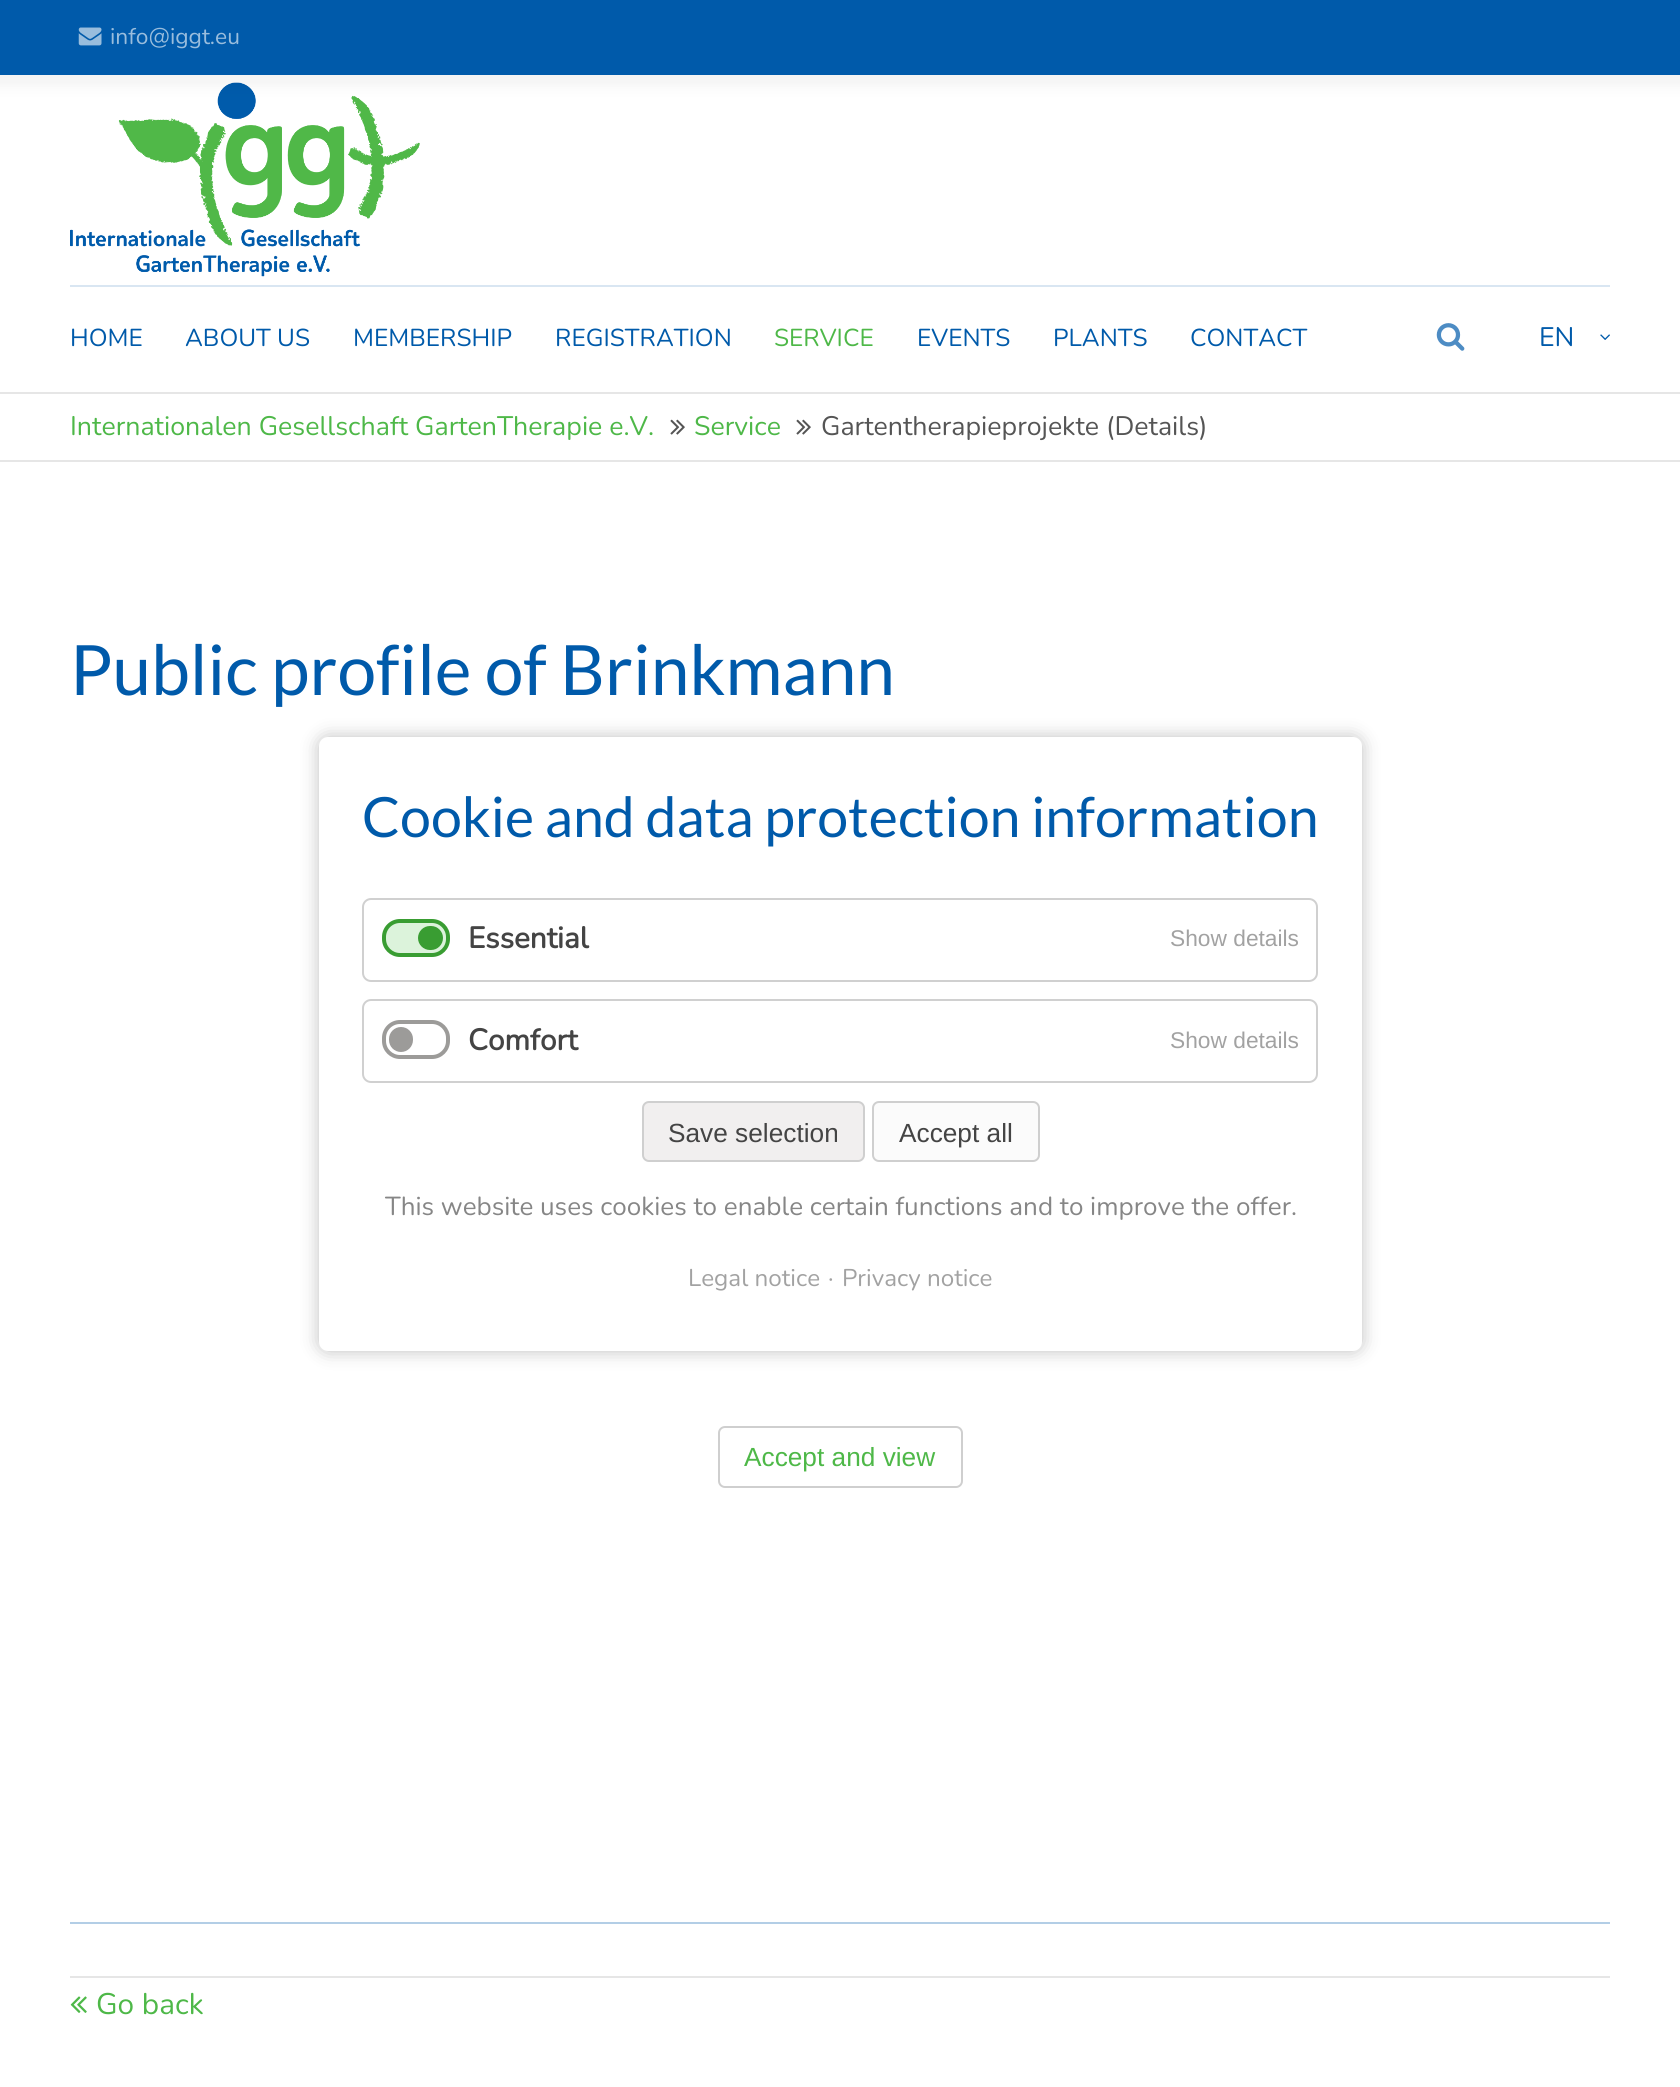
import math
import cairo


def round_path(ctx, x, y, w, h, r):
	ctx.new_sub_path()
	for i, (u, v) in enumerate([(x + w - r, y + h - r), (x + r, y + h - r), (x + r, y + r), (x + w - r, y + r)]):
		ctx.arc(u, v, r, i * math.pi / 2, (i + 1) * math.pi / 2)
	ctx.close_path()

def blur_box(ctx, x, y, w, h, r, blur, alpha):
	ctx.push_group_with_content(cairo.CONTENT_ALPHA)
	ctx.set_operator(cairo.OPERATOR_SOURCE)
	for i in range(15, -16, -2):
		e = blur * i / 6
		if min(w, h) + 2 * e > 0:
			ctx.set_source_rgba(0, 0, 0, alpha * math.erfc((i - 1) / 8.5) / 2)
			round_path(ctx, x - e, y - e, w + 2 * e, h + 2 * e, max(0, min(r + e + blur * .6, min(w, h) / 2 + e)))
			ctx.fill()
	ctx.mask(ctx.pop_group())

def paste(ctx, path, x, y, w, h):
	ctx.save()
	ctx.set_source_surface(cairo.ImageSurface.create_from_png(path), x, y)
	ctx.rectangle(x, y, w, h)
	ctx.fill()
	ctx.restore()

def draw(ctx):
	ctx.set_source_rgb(1, 1, 1)
	ctx.paint()
	paste(ctx, 'media/2.png', 70, 82, 350, 195)
	ctx.set_source_rgb(0, 0, 0)
	blur_box(ctx, -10, -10, 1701, 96, 0, 7, 0.05)
	ctx.set_source_rgb(0, 0.353, 0.667)
	ctx.rectangle(0, 0, 1680, 75)
	ctx.fill()
	paste(ctx, 'media/1.png', 78, 27, 24, 19)
	ctx.select_font_face('Nunito')
	ctx.set_font_size(22.75)
	ctx.set_source_rgb(0.6, 0.741, 0.867)
	ctx.move_to(110, 44)
	ctx.show_text('info@iggt.eu')
	ctx.set_source_rgb(0.851, 0.902, 0.949)
	ctx.rectangle(70, 285, 1540, 2)
	ctx.fill()
	ctx.set_font_size(24.5)
	ctx.set_source_rgb(0, 0.353, 0.667)
	for x, y, s in [
		(70, 346, 'HOME'),
		(185, 346, 'ABOUT US'),
		(353, 346, 'MEMBERSHIP'),
		(555, 346, 'REGISTRATION'),
	]:
		ctx.move_to(x, y)
		ctx.show_text(s)
	ctx.set_source_rgb(0.306, 0.722, 0.282)
	ctx.move_to(774, 346)
	ctx.show_text('SERVICE')
	ctx.set_source_rgb(0, 0.353, 0.667)
	for x, y, s in [
		(917, 346, 'EVENTS'),
		(1053, 346, 'PLANTS'),
		(1190, 346, 'CONTACT'),
	]:
		ctx.move_to(x, y)
		ctx.show_text(s)
	paste(ctx, 'media/3.png', 1436, 323, 29, 28)
	ctx.set_font_size(26.75)
	ctx.move_to(1539, 346)
	ctx.show_text('EN')
	paste(ctx, 'media/4.png', 1600, 334, 10, 6)
	ctx.set_source_rgb(0.902, 0.902, 0.902)
	ctx.rectangle(0, 392, 1680, 2)
	ctx.fill()
	ctx.rectangle(0, 460, 1680, 2)
	ctx.fill()
	ctx.set_source_rgb(0.306, 0.722, 0.282)
	ctx.move_to(70, 435)
	ctx.show_text('Internationalen Gesellschaft GartenTherapie e.V.')
	paste(ctx, 'media/5.png', 670, 419, 15, 16)
	ctx.move_to(694, 435)
	ctx.show_text('Service')
	paste(ctx, 'media/5.png', 796, 419, 15, 16)
	ctx.set_source_rgb(0.333, 0.333, 0.333)
	ctx.move_to(821, 435)
	ctx.show_text('Gartentherapieprojekte (Details)')
	ctx.select_font_face('Lato')
	ctx.set_font_size(69.4)
	ctx.set_source_rgb(0, 0.353, 0.667)
	ctx.move_to(70, 695)
	ctx.show_text('Public profile of Brinkmann')
	round_path(ctx, 719, 1427, 243, 60, 6)
	ctx.set_source_rgb(0.812, 0.812, 0.812)
	ctx.stroke()
	ctx.select_font_face('Liberation Sans')
	ctx.set_font_size(26.25)
	ctx.set_source_rgb(0.306, 0.722, 0.282)
	ctx.move_to(744, 1466)
	ctx.show_text('Accept and view')
	ctx.set_source_rgb(0.702, 0.808, 0.902)
	ctx.rectangle(70, 1922, 1540, 2)
	ctx.fill()
	ctx.set_source_rgb(0.902, 0.902, 0.902)
	ctx.rectangle(70, 1976, 1540, 2)
	ctx.fill()
	paste(ctx, 'media/6.png', 70, 1996, 17, 17)
	ctx.select_font_face('Nunito')
	ctx.set_font_size(29.75)
	ctx.set_source_rgb(0.306, 0.722, 0.282)
	ctx.move_to(96, 2014)
	ctx.show_text('Go back')
	ctx.set_source_rgb(0, 0, 0)
	blur_box(ctx, 319, 737, 1043, 614, 9, 9, 0.25)
	ctx.set_source_rgb(1, 1, 1)
	round_path(ctx, 319, 737, 1043, 614, 9)
	ctx.fill()
	ctx.select_font_face('Lato')
	ctx.set_font_size(55.5)
	ctx.set_source_rgb(0, 0.353, 0.667)
	ctx.move_to(362, 837)
	ctx.show_text('Cookie and data protection information')
	round_path(ctx, 363, 899, 954, 82, 8)
	ctx.set_source_rgb(0.816, 0.816, 0.816)
	ctx.stroke()
	ctx.set_source_rgb(0.863, 0.953, 0.859)
	round_path(ctx, 384, 921, 64, 34, 16)
	ctx.fill_preserve()
	ctx.set_source_rgb(0.224, 0.616, 0.196)
	ctx.set_line_width(4)
	ctx.stroke()
	round_path(ctx, 418, 926, 25, 24, 12)
	ctx.fill()
	ctx.select_font_face('Nunito', cairo.FONT_SLANT_NORMAL, cairo.FONT_WEIGHT_BOLD)
	ctx.set_font_size(29.75)
	ctx.set_source_rgb(0.267, 0.267, 0.267)
	ctx.move_to(468, 948)
	ctx.show_text('Essential')
	ctx.select_font_face('Liberation Sans')
	ctx.set_font_size(22.75)
	ctx.set_source_rgb(0.635, 0.635, 0.635)
	ctx.move_to(1170, 946)
	ctx.show_text('Show details')
	round_path(ctx, 363, 1000, 954, 82, 8)
	ctx.set_source_rgb(0.816, 0.816, 0.816)
	ctx.set_line_width(2)
	ctx.stroke()
	round_path(ctx, 384, 1022, 64, 35, 16)
	ctx.set_source_rgb(0.612, 0.608, 0.6)
	ctx.set_line_width(4)
	ctx.stroke()
	round_path(ctx, 389, 1027, 24, 25, 12)
	ctx.fill()
	ctx.select_font_face('Nunito', cairo.FONT_SLANT_NORMAL, cairo.FONT_WEIGHT_BOLD)
	ctx.set_font_size(29.75)
	ctx.set_source_rgb(0.267, 0.267, 0.267)
	ctx.move_to(468, 1050)
	ctx.show_text('Comfort')
	ctx.select_font_face('Liberation Sans')
	ctx.set_font_size(22.75)
	ctx.set_source_rgb(0.635, 0.635, 0.635)
	ctx.move_to(1170, 1048)
	ctx.show_text('Show details')
	ctx.set_source_rgb(0.945, 0.937, 0.937)
	round_path(ctx, 643, 1102, 221, 59, 6)
	ctx.fill_preserve()
	ctx.set_source_rgb(0.812, 0.812, 0.812)
	ctx.set_line_width(2)
	ctx.stroke()
	ctx.set_font_size(26.25)
	ctx.set_source_rgb(0.267, 0.267, 0.267)
	ctx.move_to(668, 1142)
	ctx.show_text('Save selection')
	ctx.set_source_rgb(0.984, 0.984, 0.984)
	round_path(ctx, 873, 1102, 166, 59, 6)
	ctx.fill_preserve()
	ctx.set_source_rgb(0.812, 0.812, 0.812)
	ctx.stroke()
	ctx.set_source_rgb(0.267, 0.267, 0.267)
	ctx.move_to(899, 1142)
	ctx.show_text('Accept all')
	ctx.select_font_face('Nunito')
	ctx.set_font_size(26.05)
	ctx.set_source_rgb(0.525, 0.525, 0.525)
	ctx.move_to(385, 1215)
	ctx.show_text('This website uses cookies to enable certain functions and to improve the offer.')
	ctx.set_font_size(24.25)
	ctx.set_source_rgb(0.635, 0.635, 0.635)
	for x, y, s in [
		(688, 1286, 'Legal notice'),
		(828, 1286, '·'),
		(842, 1286, 'Privacy notice'),
	]:
		ctx.move_to(x, y)
		ctx.show_text(s)


surface = cairo.ImageSurface(cairo.FORMAT_RGB24, 1680, 2087)
ctx = cairo.Context(surface)
options = cairo.FontOptions()
options.set_hint_metrics(cairo.HINT_METRICS_OFF)
options.set_hint_style(cairo.HINT_STYLE_NONE)
ctx.set_font_options(options)
ctx.set_miter_limit(4)
draw(ctx)
surface.write_to_png('image.png')
